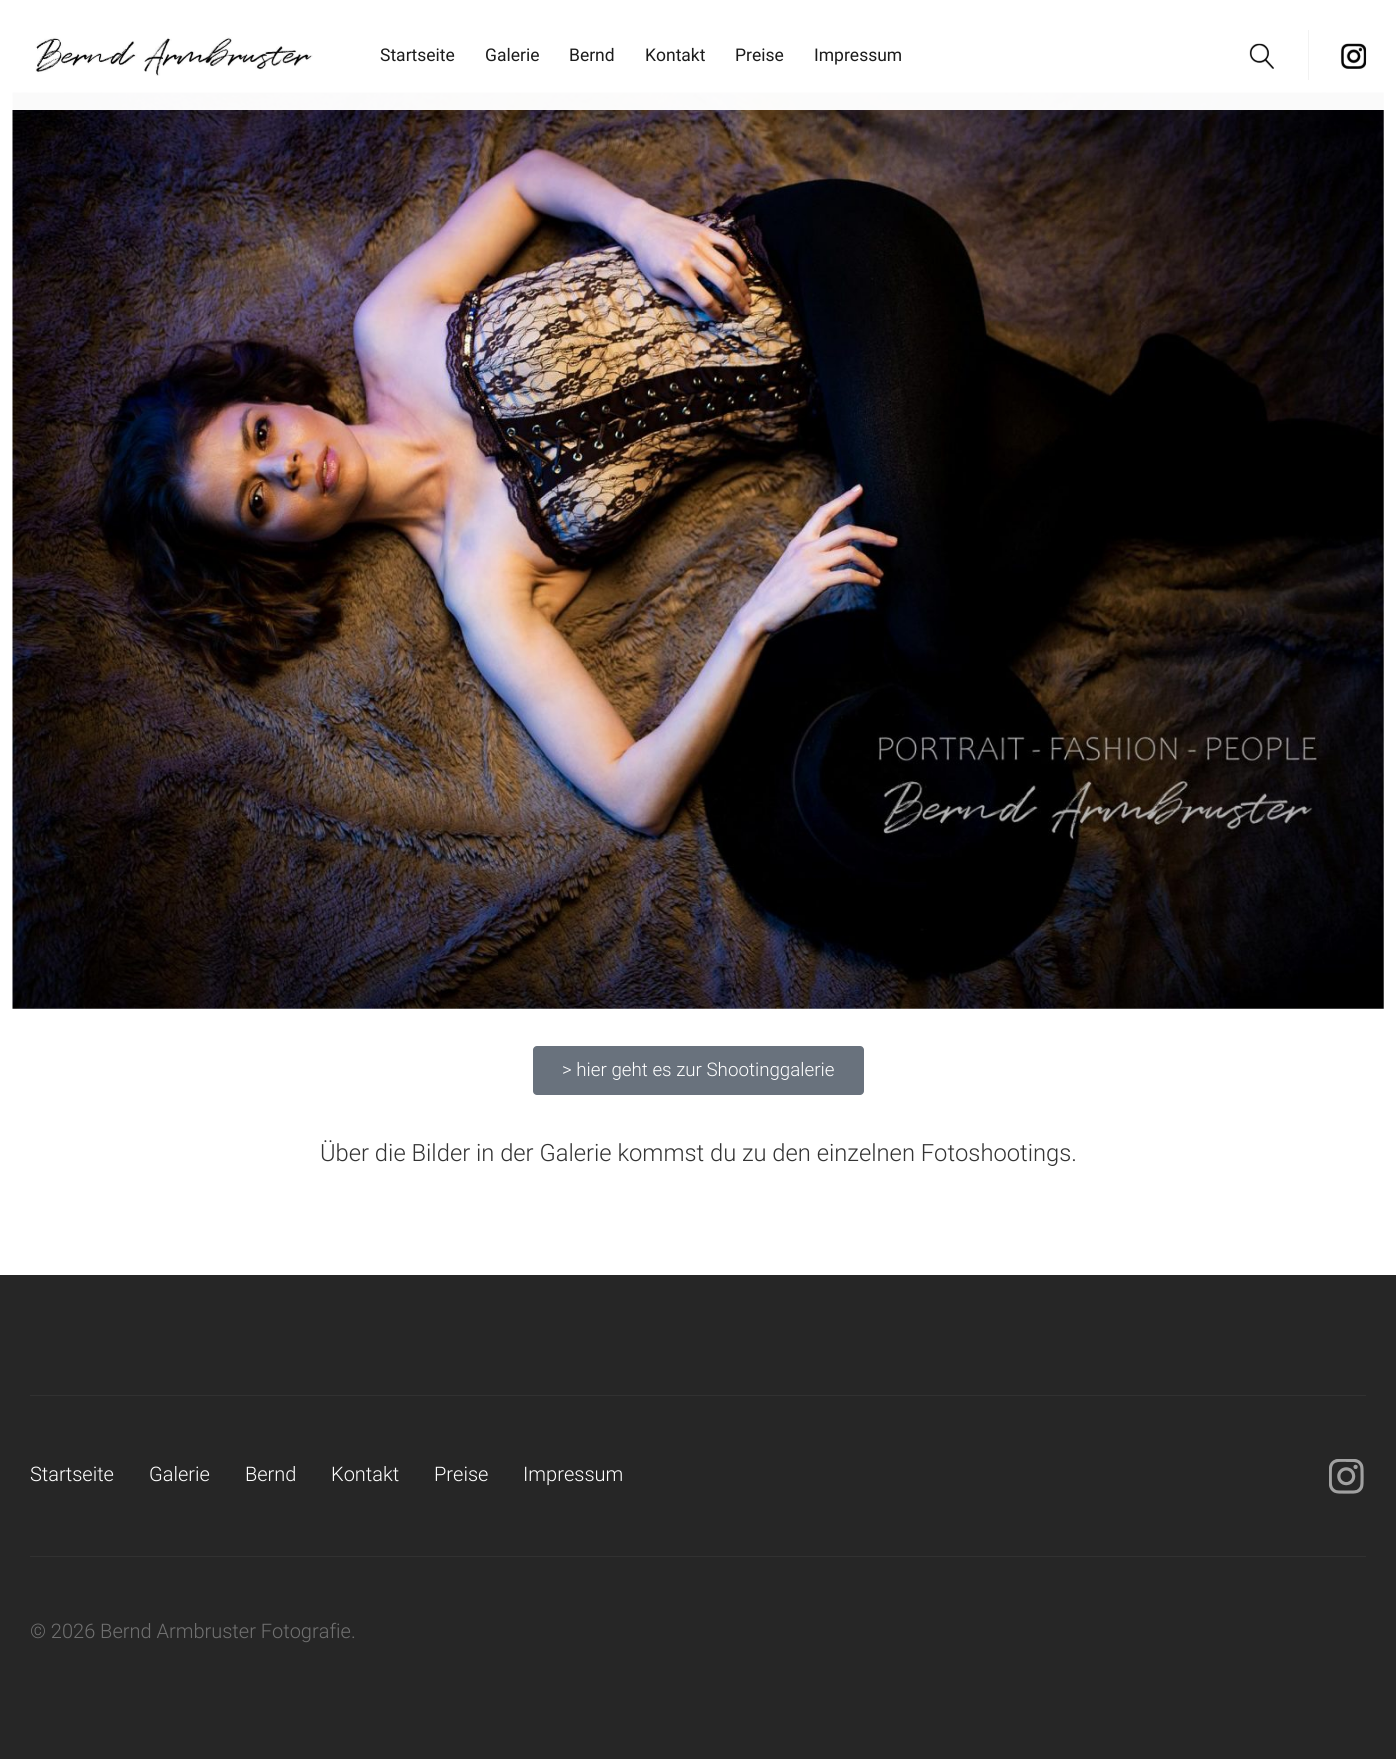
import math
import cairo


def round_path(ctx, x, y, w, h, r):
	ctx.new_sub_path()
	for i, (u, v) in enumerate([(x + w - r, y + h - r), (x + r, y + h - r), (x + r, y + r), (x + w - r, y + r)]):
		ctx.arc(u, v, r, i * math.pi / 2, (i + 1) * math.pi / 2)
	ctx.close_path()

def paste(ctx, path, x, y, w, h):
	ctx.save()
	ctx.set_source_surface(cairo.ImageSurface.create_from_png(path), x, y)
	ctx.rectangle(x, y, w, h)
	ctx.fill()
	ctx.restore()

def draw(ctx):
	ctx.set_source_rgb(1, 1, 1)
	ctx.paint()
	paste(ctx, 'media/6.png', 12, 92, 1372, 917)
	ctx.set_source_rgba(1, 1, 1, 0.98)
	ctx.rectangle(12, 92, 1372, 18)
	ctx.fill()
	paste(ctx, 'media/1.png', 35, 37, 278, 39)
	ctx.select_font_face('Roboto')
	ctx.set_font_size(17.5)
	ctx.set_source_rgb(0.11, 0.11, 0.11)
	for x, y, s in [
		(380, 61, 'Startseite'),
		(485, 61, 'Galerie'),
		(569, 61, 'Bernd'),
		(645, 61, 'Kontakt'),
		(735, 61, 'Preise'),
		(814, 61, 'Impressum'),
	]:
		ctx.move_to(x, y)
		ctx.show_text(s)
	ctx.set_source_rgb(0.949, 0.949, 0.949)
	ctx.rectangle(1308, 30, 1, 50)
	ctx.fill()
	paste(ctx, 'media/2.png', 1249, 43, 25, 26)
	paste(ctx, 'media/3.png', 1250, 44, 24, 25)
	paste(ctx, 'media/4.png', 1340, 43, 27, 26)
	paste(ctx, 'media/5.png', 1341, 44, 25, 25)
	ctx.set_source_rgb(0.412, 0.447, 0.49)
	round_path(ctx, 533, 1046, 331, 49, 4)
	ctx.fill()
	ctx.select_font_face('Roboto Light')
	ctx.set_font_size(18.75)
	ctx.set_source_rgb(1, 1, 1)
	ctx.move_to(562, 1076)
	ctx.show_text('> hier geht es zur Shootinggalerie')
	ctx.set_font_size(23.75)
	ctx.set_source_rgb(0.2, 0.2, 0.2)
	ctx.move_to(320, 1161)
	ctx.show_text('Über die Bilder in der Galerie kommst du zu den einzelnen Fotoshootings.')
	ctx.set_source_rgb(0.149, 0.149, 0.149)
	ctx.rectangle(0, 1275, 1396, 484)
	ctx.fill()
	ctx.set_source_rgb(0.192, 0.192, 0.192)
	ctx.rectangle(30, 1395, 1336, 1)
	ctx.rectangle(30, 1556, 1336, 1)
	ctx.fill()
	ctx.set_font_size(20)
	ctx.set_source_rgb(1, 1, 1)
	for x, y, s in [
		(30, 1481, 'Startseite'),
		(149, 1481, 'Galerie'),
		(245, 1481, 'Bernd'),
		(331, 1481, 'Kontakt'),
		(434, 1481, 'Preise'),
		(523, 1481, 'Impressum'),
	]:
		ctx.move_to(x, y)
		ctx.show_text(s)
	paste(ctx, 'media/7.png', 1329, 1459, 35, 35)
	paste(ctx, 'media/8.png', 1329, 1459, 35, 35)
	ctx.set_source_rgb(0.439, 0.439, 0.439)
	ctx.move_to(30, 1638)
	ctx.show_text('© 2026 Bernd Armbruster Fotografie.')


surface = cairo.ImageSurface(cairo.FORMAT_RGB24, 1396, 1759)
ctx = cairo.Context(surface)
options = cairo.FontOptions()
options.set_hint_metrics(cairo.HINT_METRICS_OFF)
options.set_hint_style(cairo.HINT_STYLE_NONE)
ctx.set_font_options(options)
ctx.set_miter_limit(4)
draw(ctx)
surface.write_to_png('image.png')
